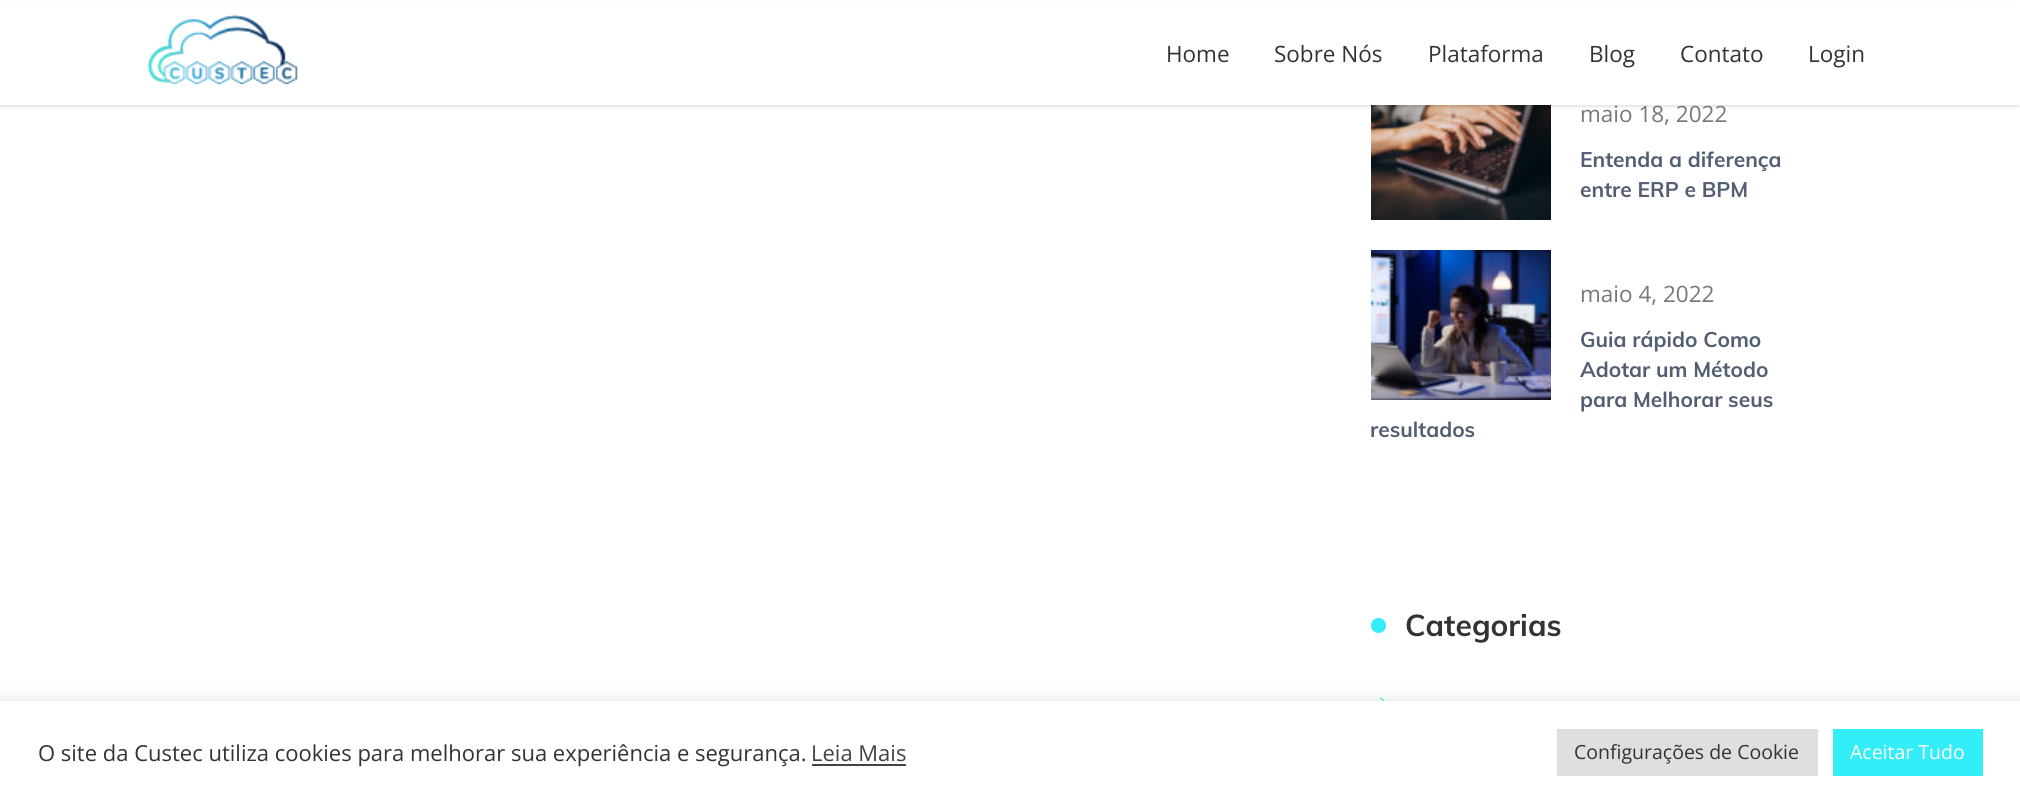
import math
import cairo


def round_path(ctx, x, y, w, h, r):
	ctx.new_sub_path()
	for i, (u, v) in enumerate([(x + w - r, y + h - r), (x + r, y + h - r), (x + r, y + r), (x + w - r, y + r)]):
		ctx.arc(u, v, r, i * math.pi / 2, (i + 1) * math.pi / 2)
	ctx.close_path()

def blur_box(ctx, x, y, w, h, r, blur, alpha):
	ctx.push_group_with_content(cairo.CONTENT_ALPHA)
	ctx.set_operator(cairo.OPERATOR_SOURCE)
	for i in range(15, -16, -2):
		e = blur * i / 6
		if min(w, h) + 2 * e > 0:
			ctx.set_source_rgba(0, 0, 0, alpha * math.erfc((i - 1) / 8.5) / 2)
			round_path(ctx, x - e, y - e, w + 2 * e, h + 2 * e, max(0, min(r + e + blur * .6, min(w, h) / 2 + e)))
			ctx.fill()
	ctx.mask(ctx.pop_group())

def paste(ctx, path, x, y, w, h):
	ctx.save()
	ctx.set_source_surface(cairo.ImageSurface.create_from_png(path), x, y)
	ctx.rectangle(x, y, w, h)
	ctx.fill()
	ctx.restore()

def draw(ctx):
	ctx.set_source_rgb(1, 1, 1)
	ctx.paint()
	paste(ctx, 'media/2.png', 1371, 105, 180, 115)
	ctx.set_source_rgb(0, 0, 0)
	blur_box(ctx, -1, 2, 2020, 105, 0, 1, 0.1)
	ctx.set_source_rgb(1, 1, 1)
	ctx.rectangle(0, 1, 2020, 104)
	ctx.fill()
	paste(ctx, 'media/1.png', 148, 15, 150, 69)
	ctx.select_font_face('Open Sans')
	ctx.set_font_size(22.5)
	ctx.set_source_rgb(0.2, 0.2, 0.2)
	for x, y, s in [
		(1166, 62, 'Home'),
		(1274, 62, 'Sobre Nós'),
		(1428, 62, 'Plataforma'),
		(1589, 62, 'Blog'),
		(1680, 62, 'Contato'),
		(1808, 62, 'Login'),
	]:
		ctx.move_to(x, y)
		ctx.show_text(s)
	ctx.set_source_rgb(0.467, 0.467, 0.467)
	ctx.move_to(1580, 122)
	ctx.show_text('maio 18, 2022')
	ctx.select_font_face('Muli', cairo.FONT_SLANT_NORMAL, cairo.FONT_WEIGHT_BOLD)
	ctx.set_font_size(21)
	ctx.set_source_rgb(0.325, 0.369, 0.447)
	ctx.move_to(1580, 167)
	ctx.show_text('Entenda a diferença')
	ctx.move_to(1580, 197)
	ctx.show_text('entre ERP e BPM')
	paste(ctx, 'media/3.png', 1371, 250, 180, 150)
	ctx.select_font_face('Open Sans')
	ctx.set_font_size(22.5)
	ctx.set_source_rgb(0.467, 0.467, 0.467)
	ctx.move_to(1580, 302)
	ctx.show_text('maio 4, 2022')
	ctx.select_font_face('Muli', cairo.FONT_SLANT_NORMAL, cairo.FONT_WEIGHT_BOLD)
	ctx.set_font_size(21)
	ctx.set_source_rgb(0.325, 0.369, 0.447)
	for x, y, s in [
		(1580, 347, 'Guia rápido Como'),
		(1580, 377, 'Adotar um Método'),
		(1580, 407, 'para Melhorar seus'),
		(1370, 437, 'resultados'),
	]:
		ctx.move_to(x, y)
		ctx.show_text(s)
	ctx.set_source_rgb(0.2, 0.929, 0.969)
	ctx.new_path()
	ctx.arc(1378.5, 625.5, 7.5, 0, 2 * math.pi)
	ctx.fill()
	ctx.set_font_size(30)
	ctx.set_source_rgb(0.2, 0.2, 0.2)
	ctx.move_to(1405, 636)
	ctx.show_text('Categorias')
	paste(ctx, 'media/4.png', 1379, 697, 6, 4)
	ctx.set_source_rgb(0.675, 0.671, 0.671)
	blur_box(ctx, 0, 699, 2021, 104, 0, 7.5, 0.3)
	ctx.set_source_rgb(1, 1, 1)
	ctx.rectangle(0, 701, 2020, 102)
	ctx.fill()
	ctx.select_font_face('Open Sans')
	ctx.set_font_size(22)
	ctx.set_source_rgb(0.2, 0.2, 0.2)
	ctx.move_to(38, 761)
	ctx.show_text('O site da Custec utiliza cookies para melhorar sua experiência e segurança.')
	ctx.set_source_rgb(0.267, 0.267, 0.267)
	ctx.move_to(811, 761)
	ctx.show_text('Leia Mais')
	ctx.rectangle(812, 764, 94, 2)
	ctx.fill()
	ctx.set_source_rgb(0.871, 0.875, 0.878)
	ctx.rectangle(1557, 729, 261, 47)
	ctx.fill()
	ctx.set_font_size(19.5)
	ctx.set_source_rgb(0.2, 0.2, 0.2)
	ctx.move_to(1574, 759)
	ctx.show_text('Configurações de Cookie')
	ctx.set_source_rgb(0.2, 0.929, 0.969)
	ctx.rectangle(1833, 729, 150, 47)
	ctx.fill()
	ctx.set_source_rgb(1, 1, 1)
	ctx.move_to(1850, 759)
	ctx.show_text('Aceitar Tudo')


surface = cairo.ImageSurface(cairo.FORMAT_RGB24, 2020, 803)
ctx = cairo.Context(surface)
options = cairo.FontOptions()
options.set_hint_metrics(cairo.HINT_METRICS_OFF)
options.set_hint_style(cairo.HINT_STYLE_NONE)
ctx.set_font_options(options)
ctx.set_miter_limit(4)
draw(ctx)
surface.write_to_png('image.png')
